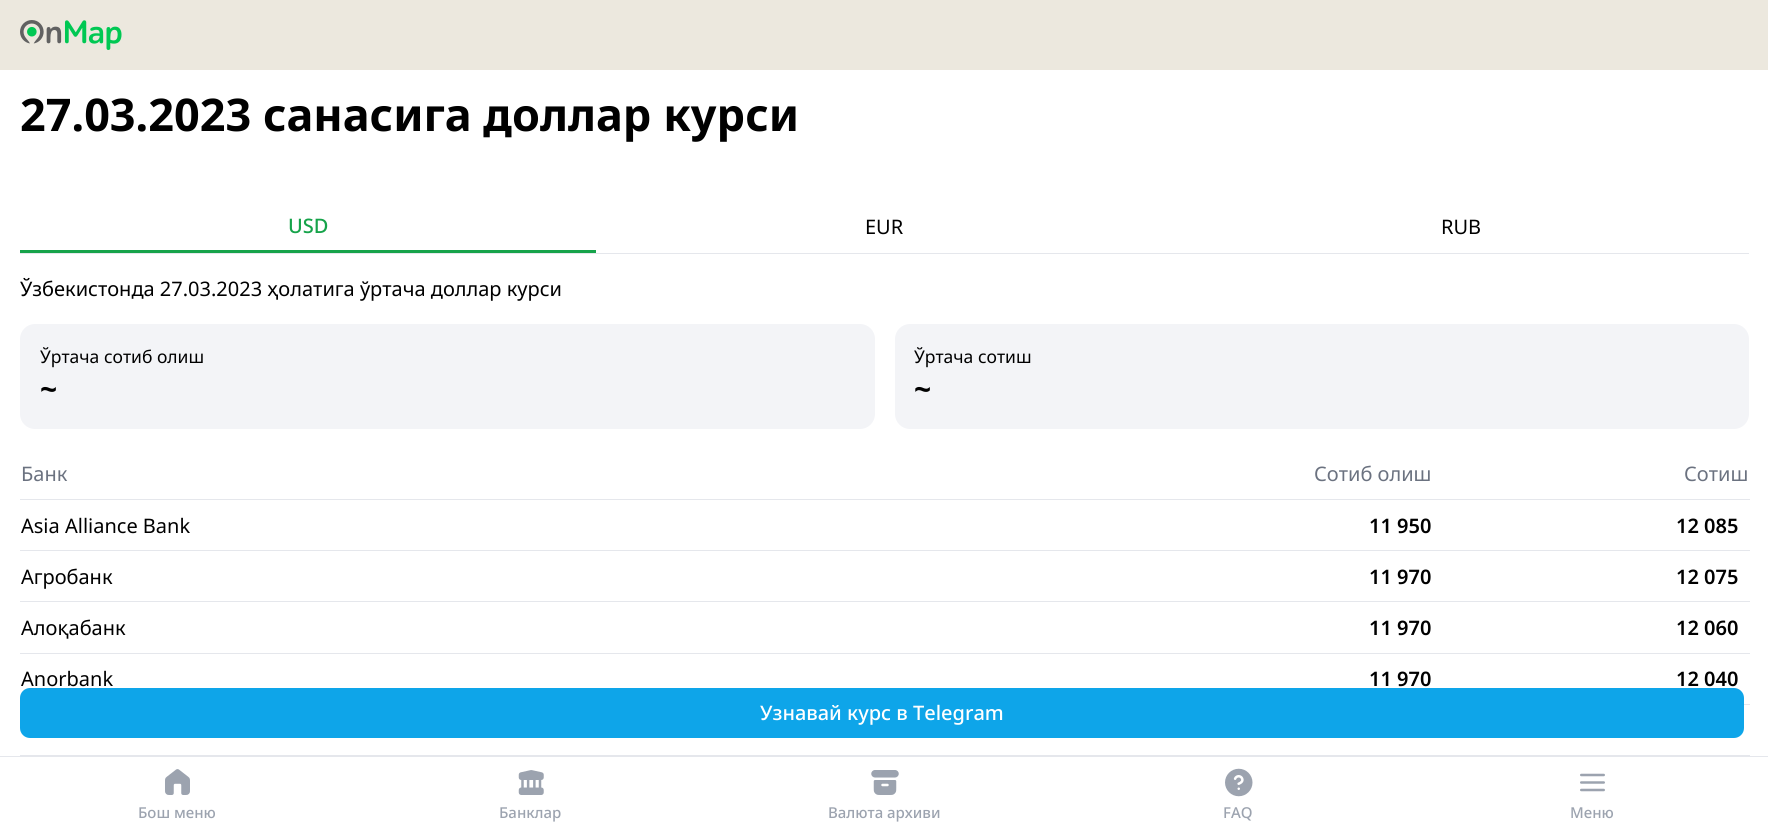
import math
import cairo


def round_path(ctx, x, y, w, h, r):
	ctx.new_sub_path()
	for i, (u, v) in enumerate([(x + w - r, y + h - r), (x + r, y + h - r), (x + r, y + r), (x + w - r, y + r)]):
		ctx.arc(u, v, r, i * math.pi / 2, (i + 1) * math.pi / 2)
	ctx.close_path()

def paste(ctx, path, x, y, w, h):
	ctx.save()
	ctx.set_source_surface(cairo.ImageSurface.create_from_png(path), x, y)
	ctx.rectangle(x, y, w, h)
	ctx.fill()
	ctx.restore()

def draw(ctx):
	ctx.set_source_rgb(1, 1, 1)
	ctx.paint()
	ctx.set_source_rgb(0.922, 0.91, 0.871)
	ctx.rectangle(0, 0, 1768, 70)
	ctx.fill()
	paste(ctx, 'media/1.png', 20, 20, 102, 30)
	ctx.select_font_face('Noto Sans', cairo.FONT_SLANT_NORMAL, cairo.FONT_WEIGHT_BOLD)
	ctx.set_font_size(45)
	ctx.set_source_rgb(0, 0, 0)
	ctx.move_to(20, 131)
	ctx.show_text('27.03.2023 санасига доллар курси')
	ctx.set_source_rgb(0.898, 0.906, 0.922)
	ctx.rectangle(20, 253, 1729, 1)
	ctx.fill()
	ctx.set_source_rgb(0.086, 0.639, 0.29)
	ctx.rectangle(20, 250, 576, 3)
	ctx.fill()
	ctx.select_font_face('Noto Sans Medium')
	ctx.set_font_size(20)
	ctx.move_to(288, 233)
	ctx.show_text('USD')
	ctx.select_font_face('Noto Sans')
	ctx.set_source_rgb(0, 0, 0)
	for x, y, s in [
		(865, 234, 'EUR'),
		(1441, 234, 'RUB'),
		(20, 296, 'Ўзбекистонда 27.03.2023 ҳолатига ўртача доллар курси'),
	]:
		ctx.move_to(x, y)
		ctx.show_text(s)
	ctx.set_source_rgb(0.953, 0.957, 0.965)
	round_path(ctx, 20, 324, 855, 105, 15)
	ctx.fill()
	ctx.set_font_size(17.5)
	ctx.set_source_rgb(0, 0, 0)
	ctx.move_to(40, 363)
	ctx.show_text('Ўртача сотиб олиш')
	ctx.select_font_face('Noto Sans', cairo.FONT_SLANT_NORMAL, cairo.FONT_WEIGHT_BOLD)
	ctx.set_font_size(30)
	ctx.move_to(40, 400)
	ctx.show_text('~')
	ctx.set_source_rgb(0.953, 0.957, 0.965)
	round_path(ctx, 895, 324, 854, 105, 15)
	ctx.fill()
	ctx.select_font_face('Noto Sans')
	ctx.set_font_size(17.5)
	ctx.set_source_rgb(0, 0, 0)
	ctx.move_to(914, 363)
	ctx.show_text('Ўртача сотиш')
	ctx.select_font_face('Noto Sans', cairo.FONT_SLANT_NORMAL, cairo.FONT_WEIGHT_BOLD)
	ctx.set_font_size(30)
	ctx.move_to(914, 400)
	ctx.show_text('~')
	ctx.select_font_face('Noto Sans')
	ctx.set_font_size(20)
	ctx.set_source_rgb(0.42, 0.447, 0.502)
	ctx.move_to(21, 481)
	ctx.show_text('Банк')
	ctx.move_to(1314, 481)
	ctx.show_text('Сотиб олиш')
	ctx.set_source_rgb(0.898, 0.906, 0.922)
	ctx.rectangle(20, 499, 1730, 1)
	ctx.fill()
	ctx.set_source_rgb(0.42, 0.447, 0.502)
	ctx.move_to(1684, 481)
	ctx.show_text('Сотиш')
	ctx.set_source_rgb(0.898, 0.906, 0.922)
	ctx.rectangle(20, 550, 1730, 1)
	ctx.fill()
	ctx.set_source_rgb(0, 0, 0)
	ctx.move_to(21, 533)
	ctx.show_text('Asia Alliance Bank')
	ctx.select_font_face('Noto Sans SemiBold')
	ctx.move_to(1369, 533)
	ctx.show_text('11 950')
	ctx.move_to(1676, 533)
	ctx.show_text('12 085')
	ctx.set_source_rgb(0.898, 0.906, 0.922)
	ctx.rectangle(20, 601, 1730, 1)
	ctx.fill()
	ctx.select_font_face('Noto Sans')
	ctx.set_source_rgb(0, 0, 0)
	ctx.move_to(21, 584)
	ctx.show_text('Агробанк')
	ctx.select_font_face('Noto Sans SemiBold')
	ctx.move_to(1369, 584)
	ctx.show_text('11 970')
	ctx.move_to(1676, 584)
	ctx.show_text('12 075')
	ctx.set_source_rgb(0.898, 0.906, 0.922)
	ctx.rectangle(20, 653, 1730, 1)
	ctx.fill()
	ctx.select_font_face('Noto Sans')
	ctx.set_source_rgb(0, 0, 0)
	ctx.move_to(21, 635)
	ctx.show_text('Алоқабанк')
	ctx.select_font_face('Noto Sans SemiBold')
	ctx.move_to(1369, 635)
	ctx.show_text('11 970')
	ctx.move_to(1676, 635)
	ctx.show_text('12 060')
	ctx.set_source_rgb(0.898, 0.906, 0.922)
	ctx.rectangle(1744, 704, 6, 1)
	ctx.fill()
	ctx.select_font_face('Noto Sans')
	ctx.set_source_rgb(0, 0, 0)
	ctx.move_to(21, 686)
	ctx.show_text('Anorbank')
	ctx.select_font_face('Noto Sans SemiBold')
	ctx.move_to(1369, 686)
	ctx.show_text('11 970')
	ctx.move_to(1676, 686)
	ctx.show_text('12 040')
	ctx.set_source_rgb(0.898, 0.906, 0.922)
	ctx.rectangle(20, 755, 1730, 1)
	ctx.fill()
	ctx.set_source_rgb(0.055, 0.647, 0.914)
	round_path(ctx, 20, 688, 1724, 50, 10)
	ctx.fill()
	ctx.select_font_face('Noto Sans Medium')
	ctx.set_source_rgb(1, 1, 1)
	ctx.move_to(760, 720)
	ctx.show_text('Узнавай курс в Telegram')
	ctx.set_source_rgb(0.898, 0.906, 0.922)
	ctx.rectangle(0, 756, 1768, 1)
	ctx.fill()
	paste(ctx, 'media/2.png', 165, 769, 25, 26)
	ctx.set_font_size(15)
	ctx.set_source_rgb(0.612, 0.639, 0.686)
	ctx.move_to(138, 818)
	ctx.show_text('Бош меню')
	paste(ctx, 'media/3.png', 518, 770, 26, 25)
	ctx.move_to(499, 818)
	ctx.show_text('Банклар')
	paste(ctx, 'media/4.png', 871, 770, 28, 25)
	ctx.move_to(828, 818)
	ctx.show_text('Валюта архиви')
	paste(ctx, 'media/5.png', 1225, 768, 28, 29)
	ctx.move_to(1223, 818)
	ctx.show_text('FAQ')
	paste(ctx, 'media/6.png', 1580, 773, 25, 19)
	ctx.move_to(1570, 818)
	ctx.show_text('Меню')


surface = cairo.ImageSurface(cairo.FORMAT_RGB24, 1768, 832)
ctx = cairo.Context(surface)
options = cairo.FontOptions()
options.set_hint_metrics(cairo.HINT_METRICS_OFF)
options.set_hint_style(cairo.HINT_STYLE_NONE)
ctx.set_font_options(options)
ctx.set_miter_limit(4)
draw(ctx)
surface.write_to_png('image.png')
